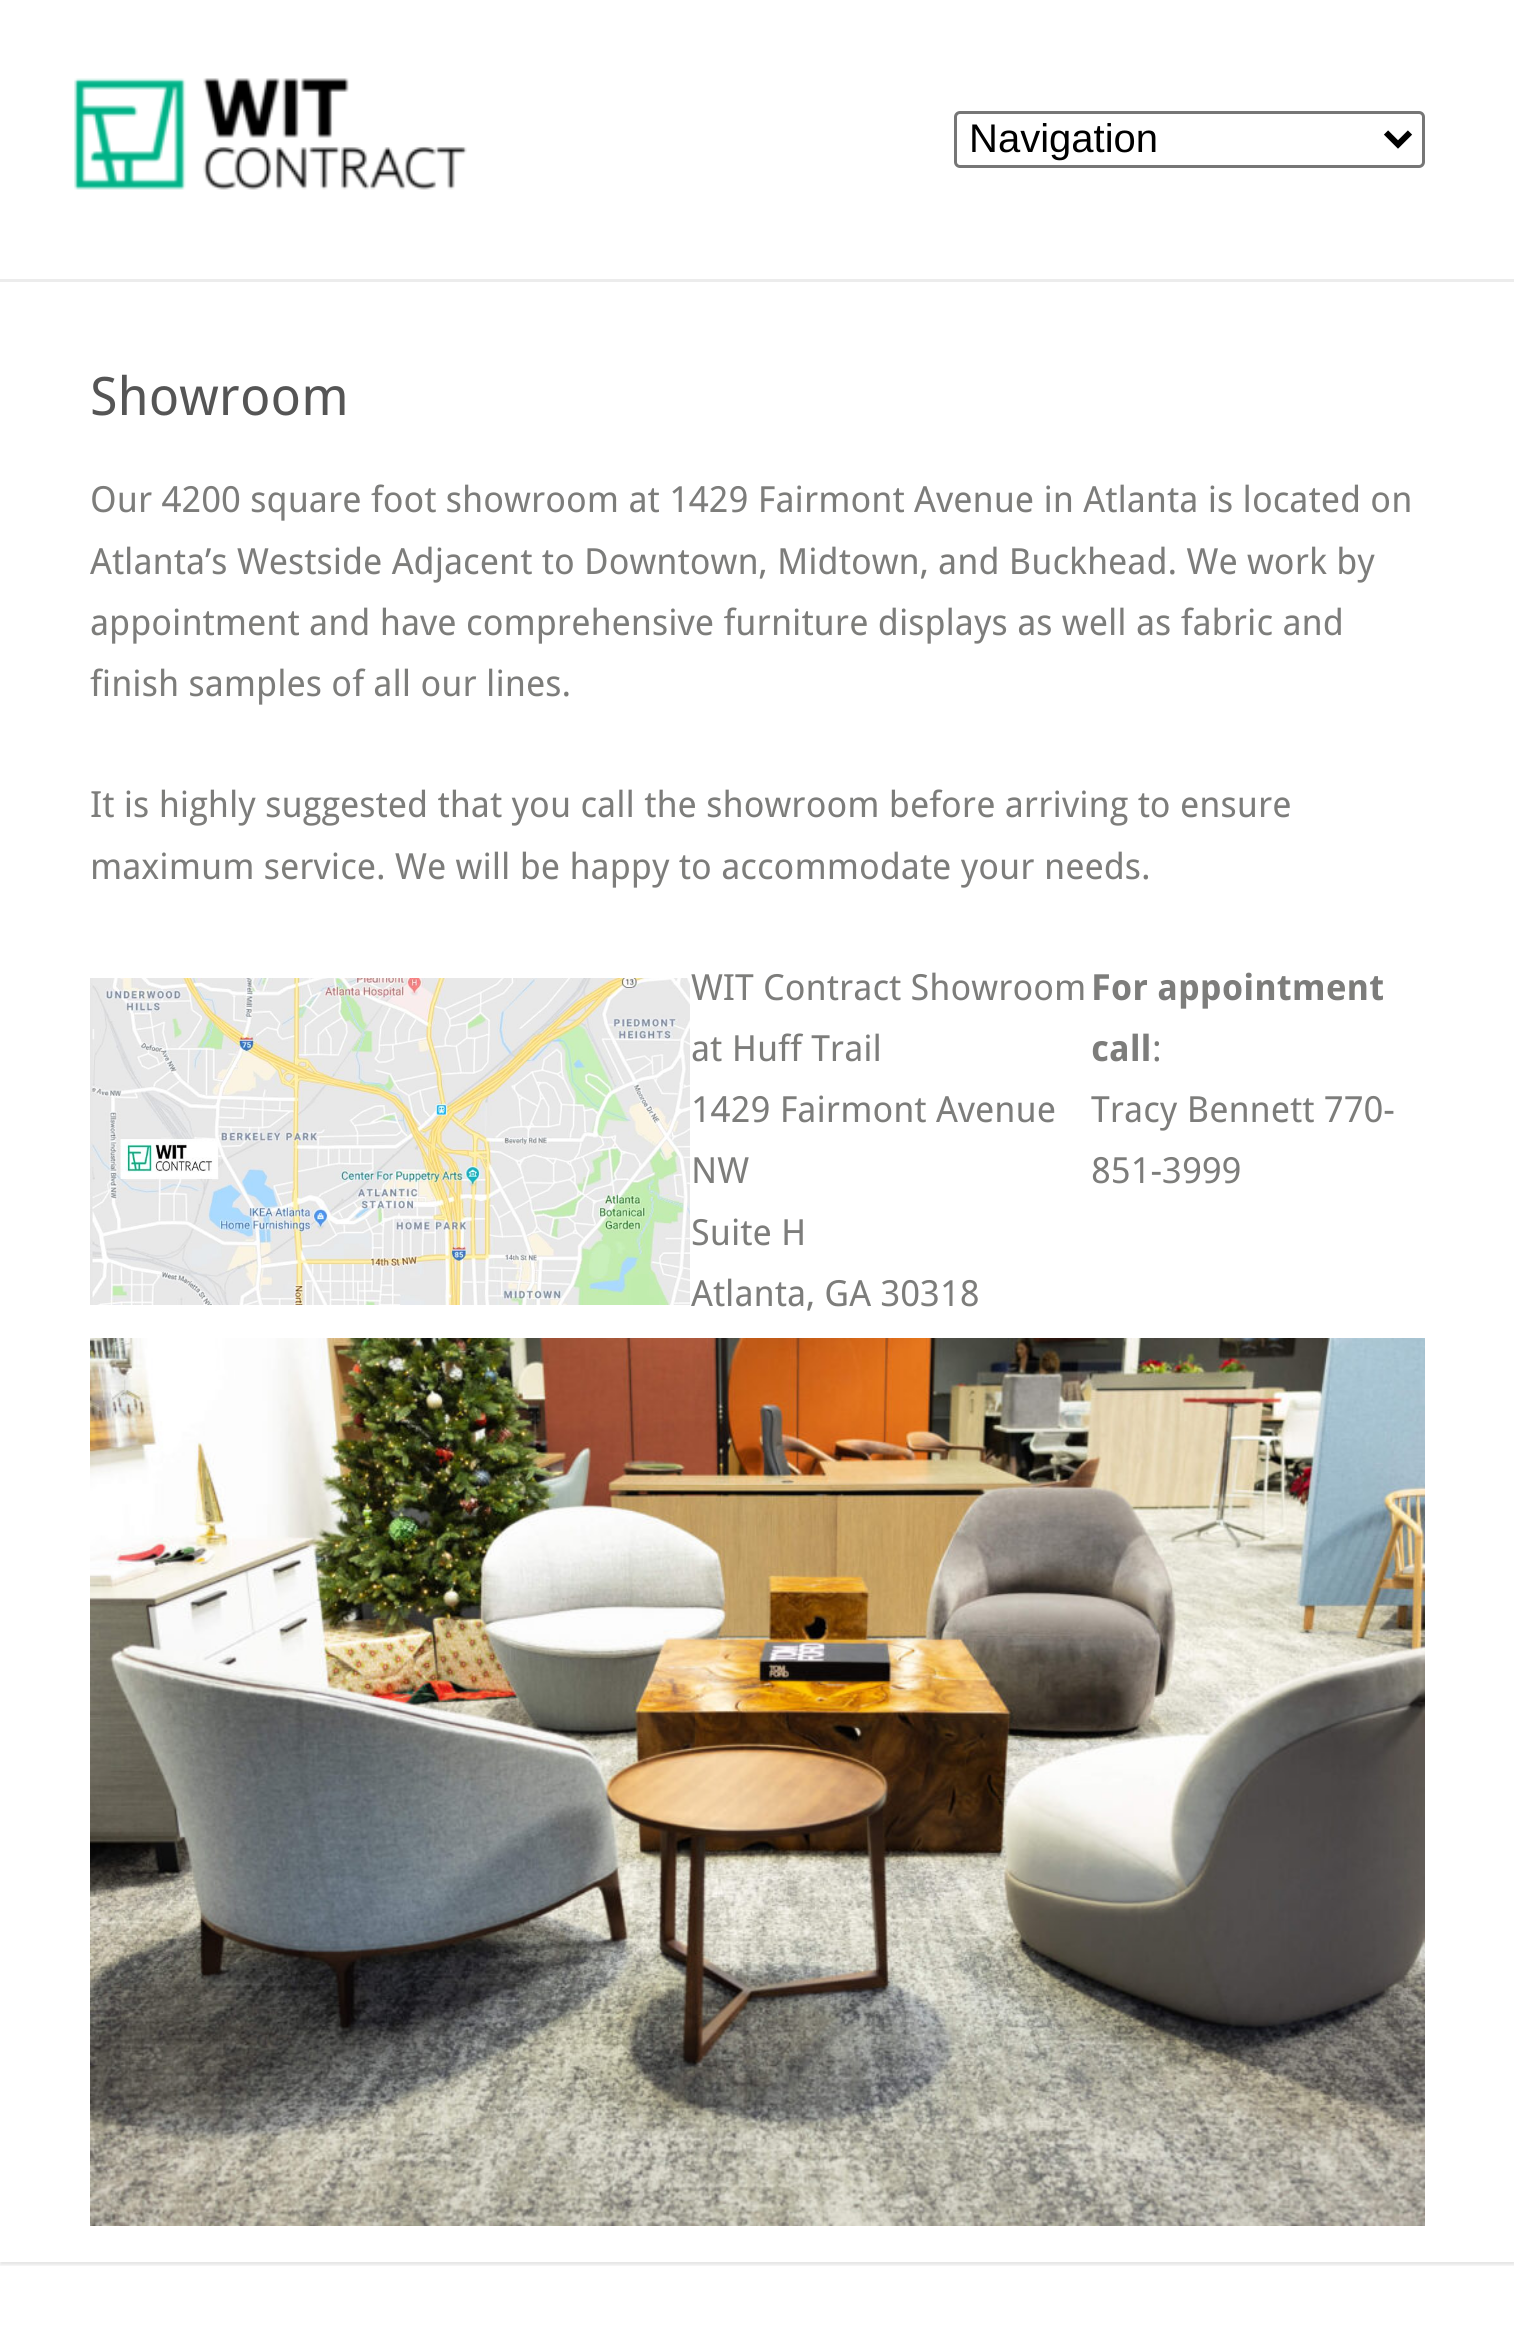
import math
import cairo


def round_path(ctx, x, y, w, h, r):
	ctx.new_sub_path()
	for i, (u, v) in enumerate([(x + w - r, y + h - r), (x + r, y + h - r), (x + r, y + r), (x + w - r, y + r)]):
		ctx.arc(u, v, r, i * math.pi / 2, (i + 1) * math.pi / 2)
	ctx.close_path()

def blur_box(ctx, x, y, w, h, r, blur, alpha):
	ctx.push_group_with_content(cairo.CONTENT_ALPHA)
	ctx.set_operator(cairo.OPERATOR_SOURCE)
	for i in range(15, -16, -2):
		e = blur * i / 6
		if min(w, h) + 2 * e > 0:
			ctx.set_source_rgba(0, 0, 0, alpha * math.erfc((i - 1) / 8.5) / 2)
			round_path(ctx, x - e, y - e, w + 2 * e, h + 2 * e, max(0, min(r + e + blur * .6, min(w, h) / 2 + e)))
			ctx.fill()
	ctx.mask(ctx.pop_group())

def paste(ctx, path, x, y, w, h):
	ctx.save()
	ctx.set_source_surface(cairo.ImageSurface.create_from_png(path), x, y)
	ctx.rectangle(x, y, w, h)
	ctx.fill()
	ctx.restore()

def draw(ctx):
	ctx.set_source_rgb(1, 1, 1)
	ctx.paint()
	ctx.save()
	ctx.rectangle(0, 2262, 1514, 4)
	ctx.clip()
	ctx.set_source_rgb(0, 0, 0)
	blur_box(ctx, 0, 285, 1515, 1980, 0, 1.5, 0.1)
	ctx.restore()
	ctx.set_source_rgb(0.922, 0.922, 0.922)
	ctx.rectangle(0, 279, 1514, 3)
	ctx.fill()
	paste(ctx, 'media/1.png', 74, 78, 393, 112)
	round_path(ctx, 955.5, 112.5, 468, 54, 4.5)
	ctx.set_source_rgb(0.463, 0.463, 0.463)
	ctx.set_line_width(3)
	ctx.stroke()
	ctx.new_path()
	ctx.move_to(1386, 132.5)
	ctx.line_to(1398, 144.5)
	ctx.line_to(1410, 132.5)
	ctx.set_source_rgb(0, 0, 0)
	ctx.set_line_width(6)
	ctx.stroke()
	ctx.select_font_face('Liberation Sans')
	ctx.set_font_size(40)
	ctx.move_to(969, 152)
	ctx.show_text('Navigation')
	ctx.select_font_face('Droid Sans')
	ctx.set_font_size(53)
	ctx.set_source_rgb(0.333, 0.333, 0.333)
	ctx.move_to(90, 415)
	ctx.show_text('Showroom')
	ctx.set_font_size(36)
	ctx.set_source_rgb(0.49, 0.49, 0.482)
	for x, y, s in [
		(90, 512, 'Our 4200 square foot showroom at 1429 Fairmont Avenue in Atlanta is located on'),
		(90, 574, 'Atlanta’s Westside Adjacent to Downtown, Midtown, and Buckhead. We work by'),
		(90, 635, 'appointment and have comprehensive furniture displays as well as fabric and'),
		(90, 696, 'finish samples of all our lines.'),
		(90, 817, 'It is highly suggested that you call the showroom before arriving to ensure'),
		(90, 879, 'maximum service. We will be happy to accommodate your needs.'),
	]:
		ctx.move_to(x, y)
		ctx.show_text(s)
	paste(ctx, 'media/2.png', 90, 978, 600, 327)
	for x, y, s in [
		(691, 1000, 'WIT Contract Showroom'),
		(691, 1061, 'at Huff Trail'),
		(691, 1122, '1429 Fairmont Avenue'),
		(691, 1183, 'NW'),
		(691, 1245, 'Suite H'),
		(691, 1306, 'Atlanta, GA 30318'),
	]:
		ctx.move_to(x, y)
		ctx.show_text(s)
	ctx.select_font_face('Droid Sans', cairo.FONT_SLANT_NORMAL, cairo.FONT_WEIGHT_BOLD)
	ctx.move_to(1091, 1000)
	ctx.show_text('For appointment')
	ctx.move_to(1091, 1061)
	ctx.show_text('call')
	ctx.select_font_face('Droid Sans')
	for x, y, s in [
		(1152, 1061, ':'),
		(1091, 1122, 'Tracy Bennett 770-'),
		(1091, 1183, '851-3999'),
	]:
		ctx.move_to(x, y)
		ctx.show_text(s)
	paste(ctx, 'media/3.png', 90, 1338, 1335, 888)


surface = cairo.ImageSurface(cairo.FORMAT_RGB24, 1514, 2326)
ctx = cairo.Context(surface)
options = cairo.FontOptions()
options.set_hint_metrics(cairo.HINT_METRICS_OFF)
options.set_hint_style(cairo.HINT_STYLE_NONE)
ctx.set_font_options(options)
ctx.set_miter_limit(4)
draw(ctx)
surface.write_to_png('image.png')
